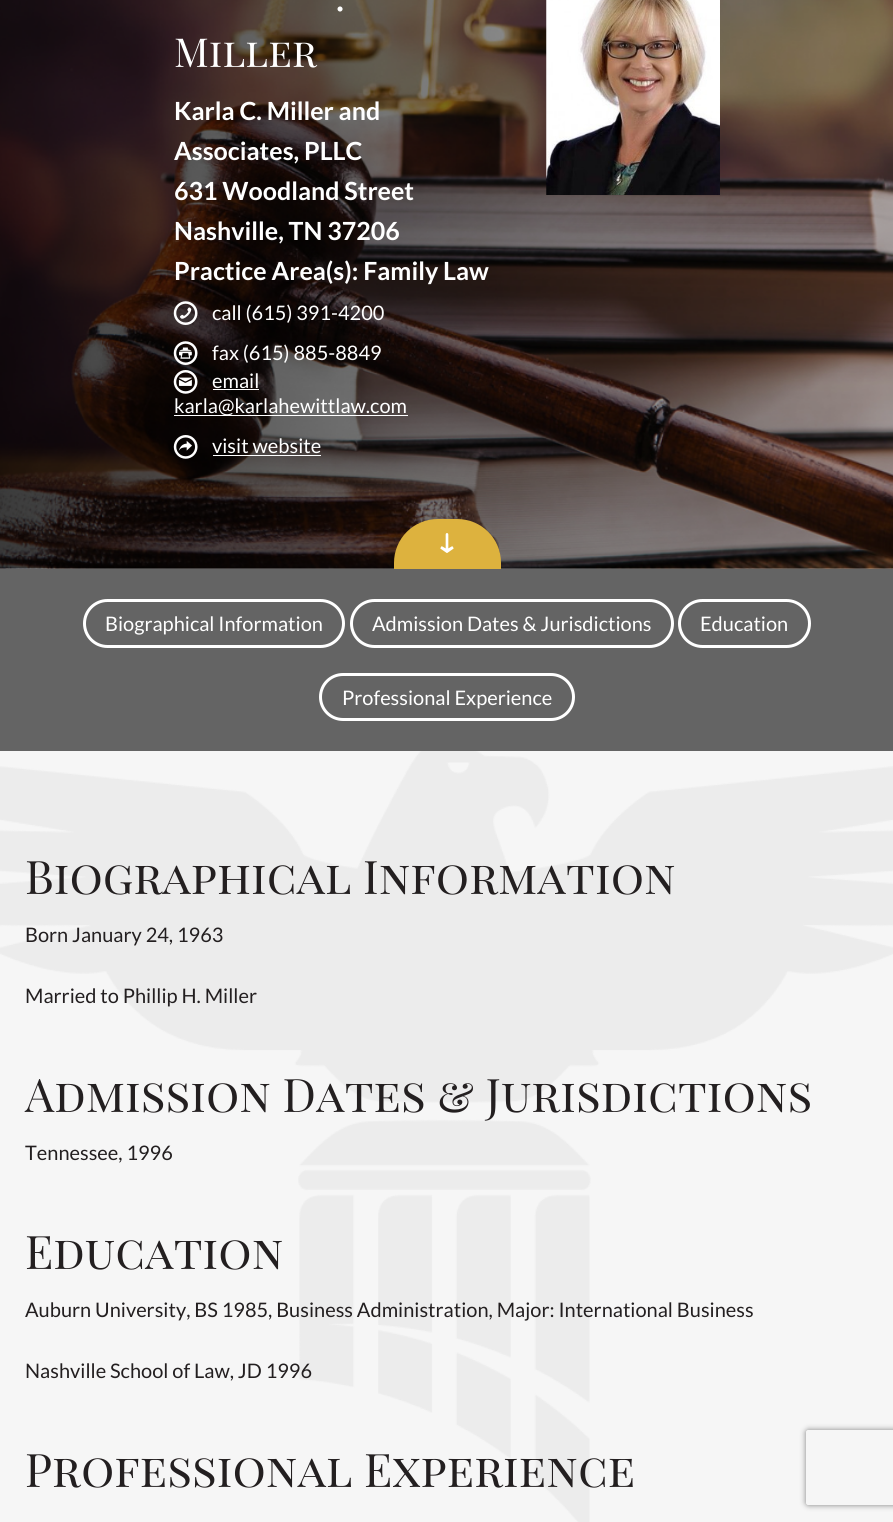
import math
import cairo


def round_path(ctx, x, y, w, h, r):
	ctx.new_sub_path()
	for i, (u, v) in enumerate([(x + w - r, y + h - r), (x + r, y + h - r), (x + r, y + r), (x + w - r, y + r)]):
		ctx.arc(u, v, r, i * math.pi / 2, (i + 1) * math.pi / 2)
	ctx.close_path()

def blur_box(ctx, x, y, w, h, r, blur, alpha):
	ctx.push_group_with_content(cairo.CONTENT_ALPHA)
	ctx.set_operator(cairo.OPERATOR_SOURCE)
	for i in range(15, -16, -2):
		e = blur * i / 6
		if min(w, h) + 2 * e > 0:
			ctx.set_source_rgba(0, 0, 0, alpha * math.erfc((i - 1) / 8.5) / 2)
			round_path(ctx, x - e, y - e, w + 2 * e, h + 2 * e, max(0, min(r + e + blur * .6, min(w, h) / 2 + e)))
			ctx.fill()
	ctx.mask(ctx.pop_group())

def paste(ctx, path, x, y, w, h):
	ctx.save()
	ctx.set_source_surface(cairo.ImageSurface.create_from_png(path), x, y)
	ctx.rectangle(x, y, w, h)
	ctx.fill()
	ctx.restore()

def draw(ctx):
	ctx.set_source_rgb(0.961, 0.961, 0.961)
	ctx.paint()
	paste(ctx, 'media/1.png', 0, 0, 893, 569)
	ctx.select_font_face('Playfair Display SC')
	ctx.set_font_size(40)
	ctx.set_source_rgb(1, 1, 1)
	ctx.move_to(335, 11)
	ctx.show_text('.')
	ctx.move_to(174, 67)
	ctx.show_text('Miller')
	ctx.select_font_face('Lato', cairo.FONT_SLANT_NORMAL, cairo.FONT_WEIGHT_BOLD)
	ctx.set_font_size(25)
	for x, y, s in [
		(174, 120, 'Karla C. Miller and'),
		(174, 160, 'Associates, PLLC'),
		(174, 200, '631 Woodland Street'),
		(174, 240, 'Nashville, TN 37206'),
		(174, 280, 'Practice Area(s): Family Law'),
	]:
		ctx.move_to(x, y)
		ctx.show_text(s)
	paste(ctx, 'media/2.png', 173, 301, 25, 24)
	ctx.select_font_face('Lato')
	ctx.set_font_size(20)
	ctx.move_to(212, 320)
	ctx.show_text('call (615) 391-4200')
	paste(ctx, 'media/3.png', 173, 341, 25, 24)
	ctx.move_to(212, 360)
	ctx.show_text('fax (615) 885-8849')
	paste(ctx, 'media/4.png', 173, 370, 25, 24)
	ctx.move_to(212, 388)
	ctx.show_text('email')
	ctx.rectangle(213, 389, 46, 1)
	ctx.fill()
	ctx.rectangle(174, 415, 234, 1)
	ctx.fill()
	ctx.move_to(174, 413)
	ctx.show_text('karla@karlahewittlaw.com')
	paste(ctx, 'media/5.png', 173, 435, 25, 24)
	ctx.move_to(212, 453)
	ctx.show_text('visit website')
	ctx.rectangle(213, 455, 108, 1)
	ctx.fill()
	paste(ctx, 'media/6.png', 546, 0, 174, 195)
	ctx.set_source_rgb(0.867, 0.698, 0.243)
	ctx.new_path()
	ctx.move_to(438, 519)
	ctx.line_to(457, 519)
	ctx.curve_to(481.5, 519, 501, 538.5, 501, 563)
	ctx.line_to(501, 569)
	ctx.line_to(394, 569)
	ctx.line_to(394, 563)
	ctx.curve_to(394, 538.5, 413.5, 519, 438, 519)
	ctx.close_path()
	ctx.fill()
	ctx.select_font_face('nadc')
	ctx.set_source_rgb(1, 1, 1)
	ctx.move_to(437, 553)
	ctx.show_text('↓')
	paste(ctx, 'media/7.png', 0, 751, 893, 771)
	ctx.set_source_rgb(0.392, 0.392, 0.392)
	ctx.rectangle(0, 569, 893, 182)
	ctx.fill()
	round_path(ctx, 84.5, 600.5, 259, 46, 23)
	ctx.set_source_rgb(1, 1, 1)
	ctx.set_line_width(3)
	ctx.stroke()
	ctx.select_font_face('Lato')
	ctx.move_to(105, 631)
	ctx.show_text('Biographical Information')
	round_path(ctx, 351.5, 600.5, 321, 46, 23)
	ctx.stroke()
	ctx.move_to(372, 631)
	ctx.show_text('Admission Dates & Jurisdictions')
	round_path(ctx, 679.5, 600.5, 130, 46, 23)
	ctx.stroke()
	ctx.move_to(700, 631)
	ctx.show_text('Education')
	round_path(ctx, 320.5, 674.5, 253, 45, 22.5)
	ctx.stroke()
	ctx.move_to(342, 705)
	ctx.show_text('Professional Experience')
	ctx.select_font_face('Playfair Display SC')
	ctx.set_font_size(46.25)
	ctx.set_source_rgb(0.137, 0.122, 0.125)
	ctx.move_to(25, 894)
	ctx.show_text('Biographical Information')
	ctx.select_font_face('Lato')
	ctx.set_font_size(20)
	ctx.move_to(25, 942)
	ctx.show_text('Born January 24, 1963')
	ctx.move_to(25, 1003)
	ctx.show_text('Married to Phillip H. Miller')
	ctx.select_font_face('Playfair Display SC')
	ctx.set_font_size(46.25)
	ctx.move_to(25, 1112)
	ctx.show_text('Admission Dates & Jurisdictions')
	ctx.select_font_face('Lato')
	ctx.set_font_size(20)
	ctx.move_to(25, 1160)
	ctx.show_text('Tennessee, 1996')
	ctx.select_font_face('Playfair Display SC')
	ctx.set_font_size(46.25)
	ctx.move_to(25, 1269)
	ctx.show_text('Education')
	ctx.select_font_face('Lato')
	ctx.set_font_size(20)
	ctx.move_to(25, 1317)
	ctx.show_text('Auburn University, BS 1985, Business Administration, Major: International Business')
	ctx.move_to(25, 1378)
	ctx.show_text('Nashville School of Law, JD 1996')
	ctx.select_font_face('Playfair Display SC')
	ctx.set_font_size(46.25)
	ctx.move_to(25, 1487)
	ctx.show_text('Professional Experience')
	ctx.save()
	ctx.set_fill_rule(cairo.FILL_RULE_EVEN_ODD)
	ctx.new_path()
	ctx.move_to(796, 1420)
	ctx.line_to(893, 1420)
	ctx.line_to(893, 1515)
	ctx.line_to(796, 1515)
	ctx.close_path()
	ctx.move_to(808.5, 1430)
	ctx.line_to(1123.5, 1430)
	ctx.curve_to(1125, 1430, 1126, 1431, 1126, 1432.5)
	ctx.line_to(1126, 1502.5)
	ctx.curve_to(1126, 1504, 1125, 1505, 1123.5, 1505)
	ctx.line_to(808.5, 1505)
	ctx.curve_to(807, 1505, 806, 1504, 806, 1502.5)
	ctx.line_to(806, 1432.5)
	ctx.curve_to(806, 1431, 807, 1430, 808.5, 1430)
	ctx.close_path()
	ctx.clip()
	ctx.set_source_rgb(0.502, 0.502, 0.502)
	blur_box(ctx, 806, 1430, 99, 75, 2.5, 3, 1)
	ctx.restore()


surface = cairo.ImageSurface(cairo.FORMAT_RGB24, 893, 1522)
ctx = cairo.Context(surface)
options = cairo.FontOptions()
options.set_hint_metrics(cairo.HINT_METRICS_OFF)
options.set_hint_style(cairo.HINT_STYLE_NONE)
ctx.set_font_options(options)
ctx.set_miter_limit(4)
draw(ctx)
surface.write_to_png('image.png')
